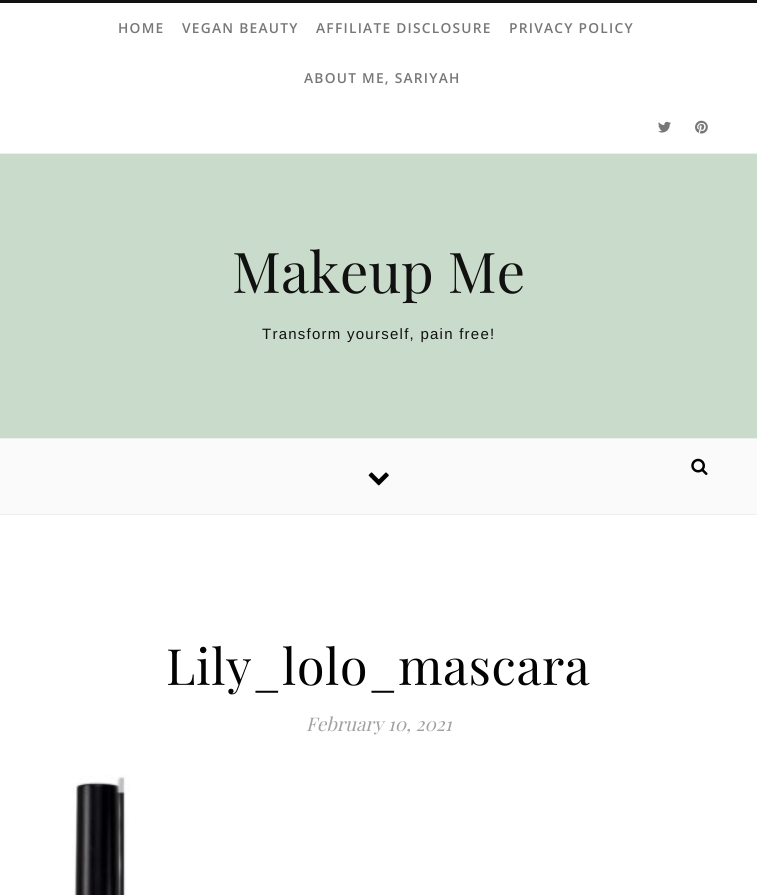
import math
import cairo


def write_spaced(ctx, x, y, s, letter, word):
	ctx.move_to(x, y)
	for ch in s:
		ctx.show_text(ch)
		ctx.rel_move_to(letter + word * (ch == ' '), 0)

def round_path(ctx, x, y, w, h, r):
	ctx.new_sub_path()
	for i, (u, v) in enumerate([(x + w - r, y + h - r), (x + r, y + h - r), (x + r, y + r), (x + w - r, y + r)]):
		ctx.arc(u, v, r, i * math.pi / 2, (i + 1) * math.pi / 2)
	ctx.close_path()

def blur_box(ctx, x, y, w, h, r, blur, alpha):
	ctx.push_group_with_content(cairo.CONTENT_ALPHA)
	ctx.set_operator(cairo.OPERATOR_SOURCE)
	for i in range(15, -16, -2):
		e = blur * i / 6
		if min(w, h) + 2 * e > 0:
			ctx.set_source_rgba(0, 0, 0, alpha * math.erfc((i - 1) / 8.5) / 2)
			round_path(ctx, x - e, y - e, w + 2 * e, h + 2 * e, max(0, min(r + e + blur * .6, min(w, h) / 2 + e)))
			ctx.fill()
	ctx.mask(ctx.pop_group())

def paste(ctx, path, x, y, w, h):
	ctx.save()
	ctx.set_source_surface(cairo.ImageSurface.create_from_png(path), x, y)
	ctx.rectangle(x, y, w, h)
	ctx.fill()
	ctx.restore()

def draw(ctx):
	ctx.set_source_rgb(1, 1, 1)
	ctx.paint()
	ctx.set_source_rgb(0.067, 0.067, 0.067)
	ctx.rectangle(0, 0, 757, 3)
	ctx.fill()
	ctx.set_source_rgb(0, 0, 0)
	blur_box(ctx, 0, 4, 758, 151, 0, 3, 0.1)
	ctx.set_source_rgb(1, 1, 1)
	ctx.rectangle(0, 3, 757, 150)
	ctx.fill()
	ctx.set_source_rgb(0.933, 0.933, 0.933)
	ctx.rectangle(0, 153, 757, 1)
	ctx.fill()
	ctx.select_font_face('Open Sans SemiBold')
	ctx.set_font_size(13.75)
	ctx.set_source_rgb(0.467, 0.467, 0.467)
	for x, y, s in [
		(118, 33, 'HOME'),
		(182, 33, 'VEGAN BEAUTY'),
		(316, 33, 'AFFILIATE DISCLOSURE'),
		(509, 33, 'PRIVACY POLICY'),
		(304, 83, 'ABOUT ME, SARIYAH'),
	]:
		write_spaced(ctx, x, y, s, 1.25, 0)
	paste(ctx, 'media/1.png', 658, 121, 13, 12)
	paste(ctx, 'media/2.png', 695, 120, 13, 14)
	ctx.set_source_rgb(0.788, 0.859, 0.792)
	ctx.rectangle(0, 154, 757, 284)
	ctx.fill()
	ctx.select_font_face('Playfair Display')
	ctx.set_font_size(56.25)
	ctx.set_source_rgb(0.067, 0.067, 0.067)
	ctx.move_to(232, 293)
	ctx.show_text('Makeup Me')
	ctx.select_font_face('Liberation Sans')
	ctx.set_font_size(15)
	write_spaced(ctx, 262, 339, 'Transform yourself, pain free!', 1.25, 0)
	ctx.set_source_rgb(0.98, 0.98, 0.98)
	ctx.rectangle(0, 439, 757, 75)
	ctx.fill()
	ctx.set_source_rgb(0.933, 0.933, 0.933)
	ctx.rectangle(0, 438, 757, 1)
	ctx.rectangle(0, 514, 757, 1)
	ctx.fill()
	paste(ctx, 'media/3.png', 691, 458, 17, 17)
	paste(ctx, 'media/4.png', 368, 472, 21, 14)
	ctx.select_font_face('Playfair Display')
	ctx.set_font_size(50)
	ctx.set_source_rgb(0.012, 0.012, 0.012)
	write_spaced(ctx, 166, 685, 'Lily_lolo_mascara', 0.6, 0)
	ctx.select_font_face('Playfair Display', cairo.FONT_SLANT_ITALIC)
	ctx.set_font_size(18.75)
	ctx.set_source_rgb(0.631, 0.631, 0.631)
	ctx.move_to(306, 731)
	ctx.show_text('February 10, 2021')
	paste(ctx, 'media/5.png', 71, 775, 59, 120)


surface = cairo.ImageSurface(cairo.FORMAT_RGB24, 757, 895)
ctx = cairo.Context(surface)
options = cairo.FontOptions()
options.set_hint_metrics(cairo.HINT_METRICS_OFF)
options.set_hint_style(cairo.HINT_STYLE_NONE)
ctx.set_font_options(options)
ctx.set_miter_limit(4)
draw(ctx)
surface.write_to_png('image.png')
